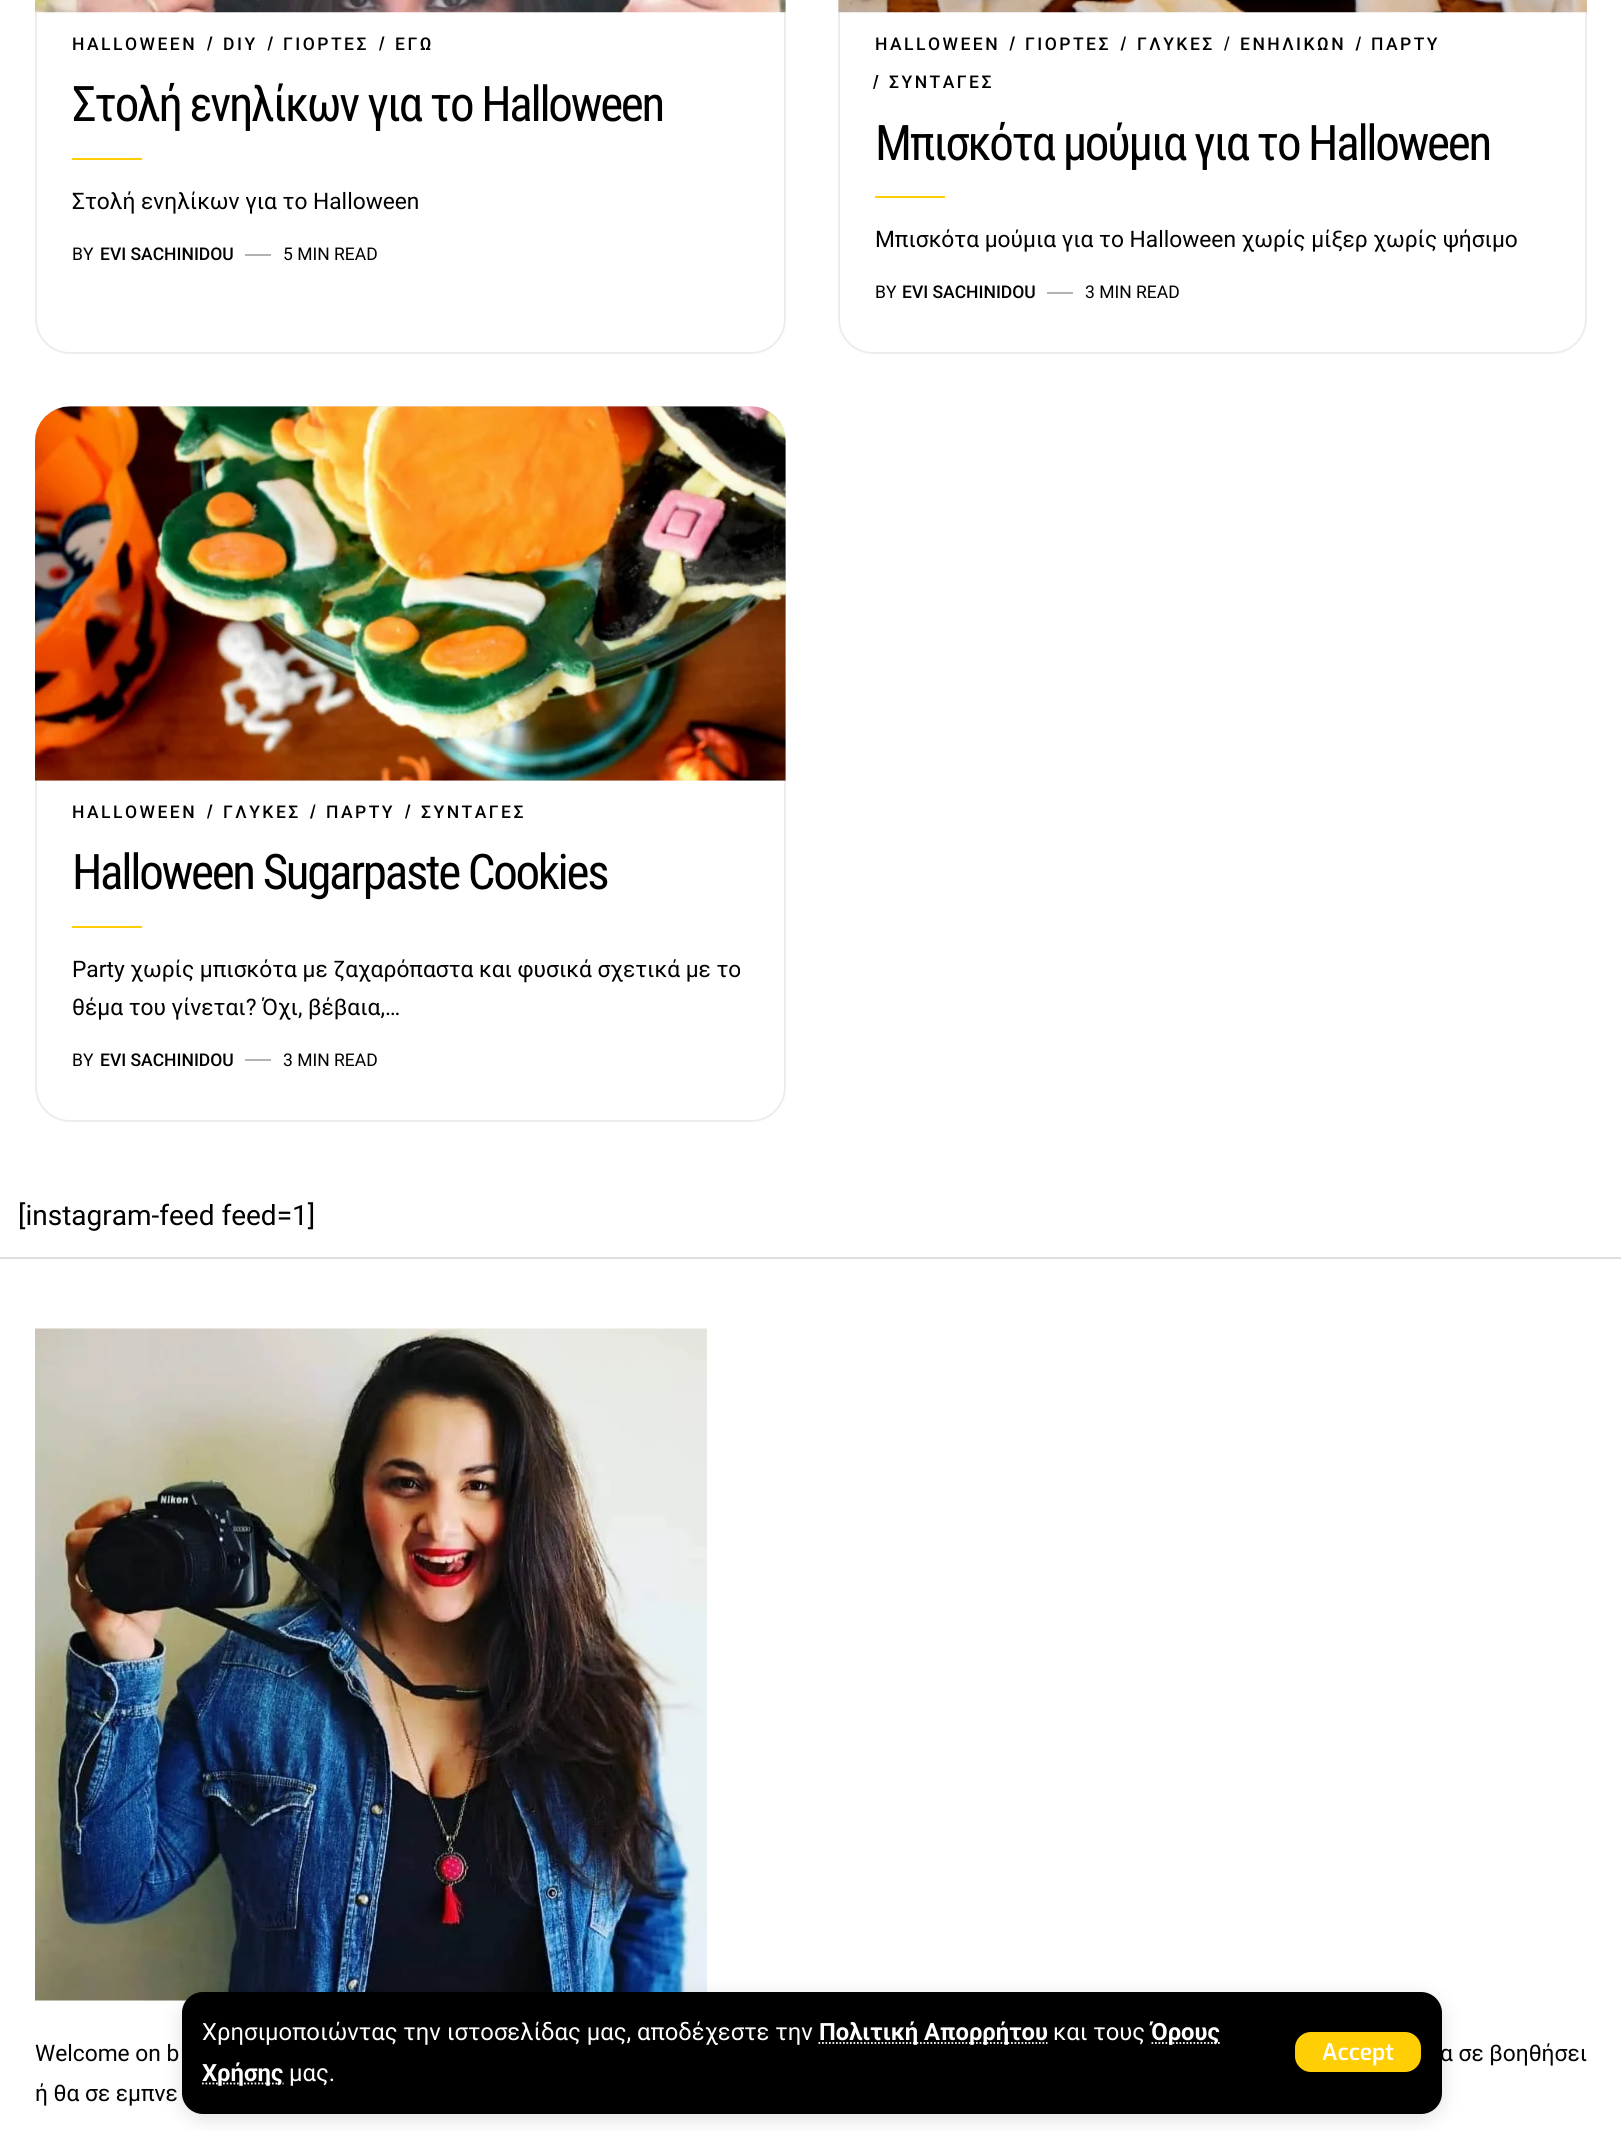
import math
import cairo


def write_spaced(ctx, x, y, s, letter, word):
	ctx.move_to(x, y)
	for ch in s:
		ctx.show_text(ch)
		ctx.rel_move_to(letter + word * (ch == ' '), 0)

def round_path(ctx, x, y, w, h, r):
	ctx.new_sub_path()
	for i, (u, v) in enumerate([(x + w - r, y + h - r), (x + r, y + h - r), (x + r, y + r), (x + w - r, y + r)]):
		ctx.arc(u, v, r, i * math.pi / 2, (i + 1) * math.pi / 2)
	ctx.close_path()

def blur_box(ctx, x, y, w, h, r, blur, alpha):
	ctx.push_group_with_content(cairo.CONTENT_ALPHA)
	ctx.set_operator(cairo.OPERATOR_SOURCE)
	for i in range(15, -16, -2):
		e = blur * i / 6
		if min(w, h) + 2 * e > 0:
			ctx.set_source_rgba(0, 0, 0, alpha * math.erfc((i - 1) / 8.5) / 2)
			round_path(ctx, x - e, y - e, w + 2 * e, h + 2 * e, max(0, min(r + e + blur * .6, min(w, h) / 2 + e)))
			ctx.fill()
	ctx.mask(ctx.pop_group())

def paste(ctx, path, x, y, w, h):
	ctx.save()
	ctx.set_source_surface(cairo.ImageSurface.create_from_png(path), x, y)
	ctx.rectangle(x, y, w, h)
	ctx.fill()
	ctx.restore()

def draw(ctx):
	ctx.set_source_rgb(1, 1, 1)
	ctx.paint()
	ctx.set_source_rgb(0, 0, 0)
	ctx.new_path()
	ctx.move_to(210.5, 36.5)
	ctx.line_to(212.5, 36.5)
	ctx.line_to(208.5, 50.5)
	ctx.line_to(207, 50.5)
	ctx.close_path()
	ctx.fill()
	ctx.new_path()
	ctx.move_to(271, 36.5)
	ctx.line_to(273, 36.5)
	ctx.line_to(269, 50.5)
	ctx.line_to(267.5, 50.5)
	ctx.close_path()
	ctx.fill()
	ctx.new_path()
	ctx.move_to(382.5, 36.5)
	ctx.line_to(384.5, 36.5)
	ctx.line_to(380.5, 50.5)
	ctx.line_to(379, 50.5)
	ctx.close_path()
	ctx.fill()
	ctx.set_source_rgb(1, 0.808, 0.02)
	ctx.rectangle(72, 158, 70, 2)
	ctx.fill()
	ctx.set_source_rgb(0.702, 0.702, 0.702)
	ctx.rectangle(245, 254, 26, 2)
	ctx.fill()
	round_path(ctx, 36, -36, 749, 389, 34)
	ctx.set_source_rgb(0.929, 0.929, 0.929)
	ctx.stroke()
	paste(ctx, 'media/1.png', 35, 0, 751, 13)
	ctx.select_font_face('Roboto Medium')
	ctx.set_font_size(17.5)
	ctx.set_source_rgb(0, 0, 0)
	for x, y, s in [
		(72, 50, 'HALLOWEEN'),
		(223, 50, 'DIY'),
		(283, 50, 'ΓΙΟΡΤΕΣ'),
		(395, 50, 'ΕΓΩ'),
	]:
		write_spaced(ctx, x, y, s, 2.5, 0)
	ctx.select_font_face('Roboto Condensed')
	ctx.set_font_size(49)
	write_spaced(ctx, 72, 121, 'Στολή ενηλίκων για το Halloween', -2.3, 0)
	ctx.select_font_face('Roboto')
	ctx.set_font_size(22.75)
	ctx.move_to(72, 209)
	ctx.show_text('Στολή ενηλίκων για το Halloween')
	ctx.set_font_size(17.5)
	ctx.move_to(72, 260)
	ctx.show_text('BY')
	ctx.select_font_face('Roboto Medium')
	ctx.move_to(100, 260)
	ctx.show_text('EVI SACHINIDOU')
	ctx.select_font_face('Roboto')
	ctx.move_to(283, 260)
	ctx.show_text('5 MIN READ')
	ctx.new_path()
	ctx.move_to(1013, 36.5)
	ctx.line_to(1015, 36.5)
	ctx.line_to(1011, 50.5)
	ctx.line_to(1009.5, 50.5)
	ctx.close_path()
	ctx.fill()
	ctx.new_path()
	ctx.move_to(1124.5, 36.5)
	ctx.line_to(1126, 36.5)
	ctx.line_to(1122.5, 50.5)
	ctx.line_to(1120.5, 50.5)
	ctx.close_path()
	ctx.fill()
	ctx.new_path()
	ctx.move_to(1228, 36.5)
	ctx.line_to(1229.5, 36.5)
	ctx.line_to(1225.5, 50.5)
	ctx.line_to(1224, 50.5)
	ctx.close_path()
	ctx.fill()
	ctx.new_path()
	ctx.move_to(1359.5, 36.5)
	ctx.line_to(1361, 36.5)
	ctx.line_to(1357.5, 50.5)
	ctx.line_to(1355.5, 50.5)
	ctx.close_path()
	ctx.fill()
	ctx.new_path()
	ctx.move_to(876.5, 75)
	ctx.line_to(878.5, 75)
	ctx.line_to(874.5, 89)
	ctx.line_to(873, 89)
	ctx.close_path()
	ctx.fill()
	ctx.set_source_rgb(1, 0.808, 0.02)
	ctx.rectangle(875, 196, 70, 2)
	ctx.fill()
	ctx.set_source_rgb(0.702, 0.702, 0.702)
	ctx.rectangle(1047, 292, 26, 2)
	ctx.fill()
	round_path(ctx, 839, -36, 747, 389, 34)
	ctx.set_source_rgb(0.929, 0.929, 0.929)
	ctx.stroke()
	paste(ctx, 'media/2.png', 838, 0, 750, 13)
	ctx.select_font_face('Roboto Medium')
	ctx.set_source_rgb(0, 0, 0)
	for x, y, s in [
		(875, 50, 'HALLOWEEN'),
		(1025, 50, 'ΓΙΟΡΤΕΣ'),
		(1137, 50, 'ΓΛΥΚΕΣ'),
		(1240, 50, 'ΕΝΗΛΙΚΩΝ'),
		(1371, 50, 'ΠΑΡΤΥ'),
		(889, 88, 'ΣΥΝΤΑΓΕΣ'),
	]:
		write_spaced(ctx, x, y, s, 2.5, 0)
	ctx.select_font_face('Roboto Condensed')
	ctx.set_font_size(49)
	write_spaced(ctx, 875, 160, 'Μπισκότα μούμια για το Halloween', -2.3, 0)
	ctx.select_font_face('Roboto')
	ctx.set_font_size(22.75)
	ctx.move_to(875, 247)
	ctx.show_text('Μπισκότα μούμια για το Halloween χωρίς μίξερ χωρίς ψήσιμο')
	ctx.set_font_size(17.5)
	ctx.move_to(875, 298)
	ctx.show_text('BY')
	ctx.select_font_face('Roboto Medium')
	ctx.move_to(902, 298)
	ctx.show_text('EVI SACHINIDOU')
	ctx.select_font_face('Roboto')
	ctx.move_to(1085, 298)
	ctx.show_text('3 MIN READ')
	ctx.new_path()
	ctx.move_to(210.5, 804.5)
	ctx.line_to(212.5, 804.5)
	ctx.line_to(208.5, 818.5)
	ctx.line_to(207, 818.5)
	ctx.close_path()
	ctx.fill()
	ctx.new_path()
	ctx.move_to(314, 804.5)
	ctx.line_to(315.5, 804.5)
	ctx.line_to(312, 818.5)
	ctx.line_to(310, 818.5)
	ctx.close_path()
	ctx.fill()
	ctx.new_path()
	ctx.move_to(408.5, 804.5)
	ctx.line_to(410.5, 804.5)
	ctx.line_to(406.5, 818.5)
	ctx.line_to(405, 818.5)
	ctx.close_path()
	ctx.fill()
	ctx.set_source_rgb(1, 0.808, 0.02)
	ctx.rectangle(72, 926, 70, 2)
	ctx.fill()
	ctx.set_source_rgb(0.702, 0.702, 0.702)
	ctx.rectangle(245, 1059, 26, 2)
	ctx.fill()
	round_path(ctx, 36, 407, 749, 714, 34)
	ctx.set_source_rgb(0.929, 0.929, 0.929)
	ctx.stroke()
	paste(ctx, 'media/3.png', 35, 406, 751, 375)
	ctx.select_font_face('Roboto Medium')
	ctx.set_source_rgb(0, 0, 0)
	for x, y, s in [
		(72, 818, 'HALLOWEEN'),
		(223, 818, 'ΓΛΥΚΕΣ'),
		(326, 818, 'ΠΑΡΤΥ'),
		(421, 818, 'ΣΥΝΤΑΓΕΣ'),
	]:
		write_spaced(ctx, x, y, s, 2.5, 0)
	ctx.select_font_face('Roboto Condensed')
	ctx.set_font_size(49)
	write_spaced(ctx, 72, 889, 'Halloween Sugarpaste Cookies', -2.3, 0)
	ctx.select_font_face('Roboto')
	ctx.set_font_size(22.75)
	ctx.move_to(72, 977)
	ctx.show_text('Party χωρίς μπισκότα με ζαχαρόπαστα και φυσικά σχετικά με το')
	ctx.move_to(72, 1015)
	ctx.show_text('θέμα του γίνεται? Όχι, βέβαια,…')
	ctx.set_font_size(17.5)
	ctx.move_to(72, 1066)
	ctx.show_text('BY')
	ctx.select_font_face('Roboto Medium')
	ctx.move_to(100, 1066)
	ctx.show_text('EVI SACHINIDOU')
	ctx.select_font_face('Roboto')
	ctx.move_to(283, 1066)
	ctx.show_text('3 MIN READ')
	ctx.set_font_size(28)
	ctx.move_to(18, 1225)
	ctx.show_text('[instagram-feed feed=1]')
	ctx.set_source_rgb(0.875, 0.875, 0.875)
	ctx.rectangle(0, 1257, 1621, 2)
	ctx.fill()
	paste(ctx, 'media/4.png', 35, 1328, 672, 673)
	ctx.set_font_size(22.75)
	ctx.set_source_rgb(0, 0, 0)
	for x, y, s in [
		(35, 2061, 'Welcome on b'),
		(1440, 2061, 'α σε βοηθήσει'),
		(35, 2101, 'ή θα σε εμπνε'),
	]:
		ctx.move_to(x, y)
		ctx.show_text(s)
	ctx.set_source_rgb(0, 0, 0)
	blur_box(ctx, 182, 1997, 1260, 122, 21, 10.5, 0.12)
	ctx.set_source_rgb(0, 0, 0)
	round_path(ctx, 182, 1992, 1260, 122, 21)
	ctx.fill()
	ctx.set_font_size(23.8)
	ctx.set_source_rgb(1, 1, 1)
	ctx.move_to(202, 2040)
	ctx.show_text('Χρησιμοποιώντας την ιστοσελίδας μας, αποδέχεστε την')
	ctx.new_path()
	ctx.move_to(818.5, 2043)
	ctx.line_to(1047.5, 2043)
	ctx.set_line_width(1.8)
	ctx.set_dash([1.75, 1.75])
	ctx.stroke()
	ctx.select_font_face('Roboto', cairo.FONT_SLANT_NORMAL, cairo.FONT_WEIGHT_BOLD)
	ctx.move_to(819, 2040)
	ctx.show_text('Πολιτική Απορρήτου')
	ctx.select_font_face('Roboto')
	ctx.move_to(1053, 2040)
	ctx.show_text('και τους')
	ctx.new_path()
	ctx.move_to(1151.5, 2043)
	ctx.line_to(1220, 2043)
	ctx.stroke()
	ctx.select_font_face('Roboto', cairo.FONT_SLANT_NORMAL, cairo.FONT_WEIGHT_BOLD)
	ctx.move_to(1151, 2040)
	ctx.show_text('Όρους')
	ctx.new_path()
	ctx.move_to(202, 2083.5)
	ctx.line_to(283.5, 2083.5)
	ctx.stroke()
	ctx.move_to(202, 2081)
	ctx.show_text('Χρήσης')
	ctx.select_font_face('Roboto')
	ctx.move_to(289, 2081)
	ctx.show_text('μας.')
	ctx.set_source_rgb(1, 0.808, 0.02)
	round_path(ctx, 1295, 2032, 126, 40, 16)
	ctx.fill()
	ctx.select_font_face('Exo SemiBold')
	ctx.set_font_size(22.75)
	ctx.set_source_rgb(1, 1, 1)
	ctx.move_to(1322, 2060)
	ctx.show_text('Accept')


surface = cairo.ImageSurface(cairo.FORMAT_RGB24, 1621, 2131)
ctx = cairo.Context(surface)
options = cairo.FontOptions()
options.set_hint_metrics(cairo.HINT_METRICS_OFF)
options.set_hint_style(cairo.HINT_STYLE_NONE)
ctx.set_font_options(options)
ctx.set_miter_limit(4)
draw(ctx)
surface.write_to_png('image.png')
